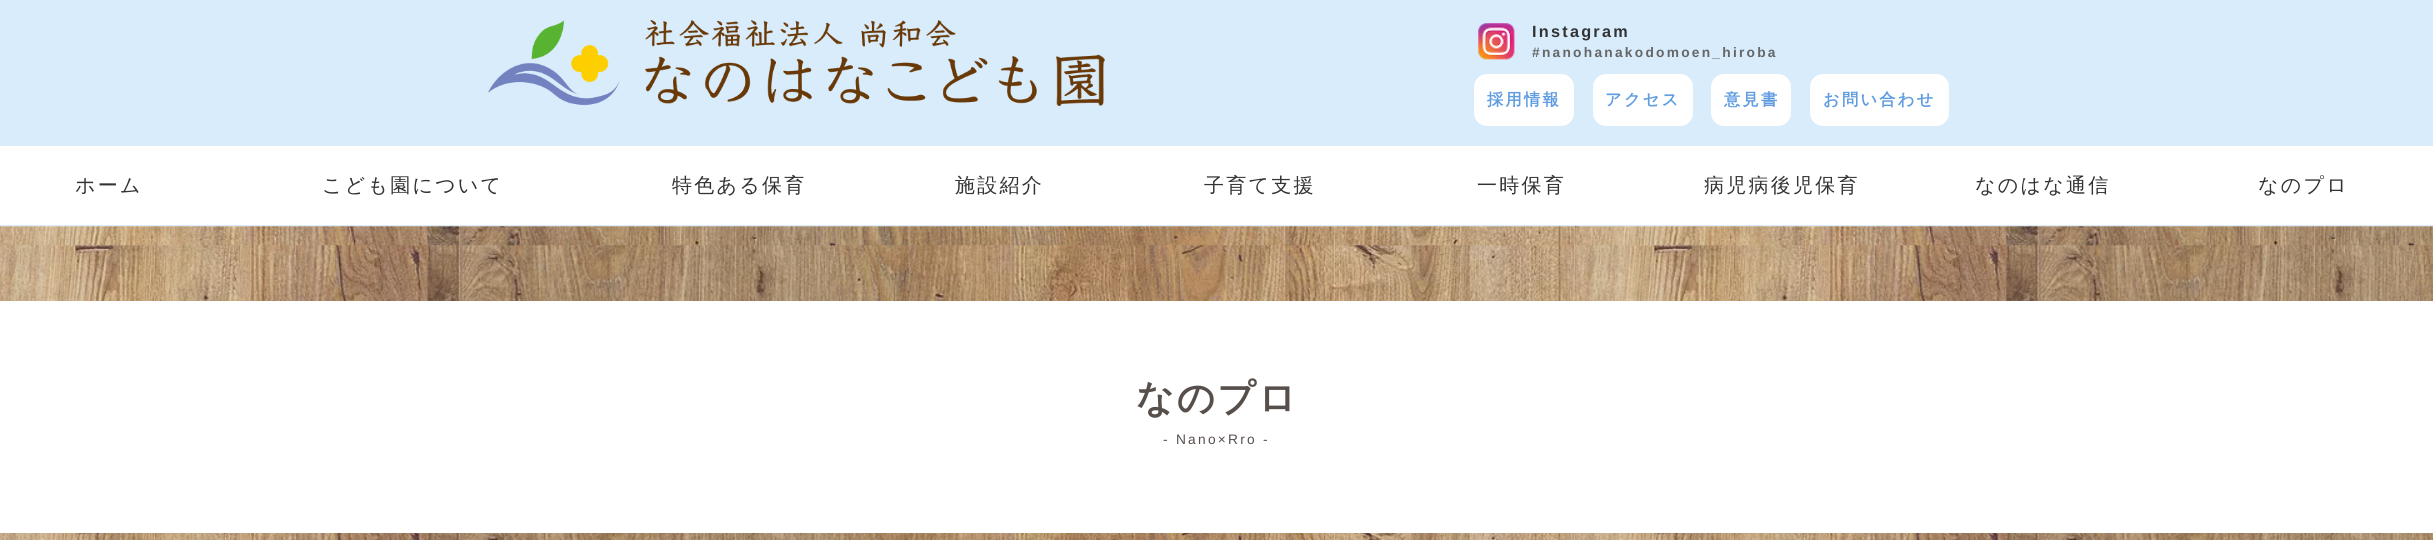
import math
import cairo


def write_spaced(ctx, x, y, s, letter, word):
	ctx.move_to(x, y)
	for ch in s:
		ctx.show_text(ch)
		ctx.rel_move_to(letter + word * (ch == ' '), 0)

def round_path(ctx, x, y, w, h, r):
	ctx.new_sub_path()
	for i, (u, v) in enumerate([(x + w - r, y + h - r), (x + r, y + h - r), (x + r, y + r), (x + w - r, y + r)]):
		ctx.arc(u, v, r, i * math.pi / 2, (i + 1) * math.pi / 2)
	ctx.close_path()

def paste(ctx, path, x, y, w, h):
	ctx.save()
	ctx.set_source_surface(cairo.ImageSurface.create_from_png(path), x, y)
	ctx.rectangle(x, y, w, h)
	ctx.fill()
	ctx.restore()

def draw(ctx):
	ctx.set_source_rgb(1, 1, 1)
	ctx.paint()
	ctx.set_source_rgb(0.847, 0.922, 0.988)
	ctx.rectangle(0, 0, 2433, 146)
	ctx.fill()
	paste(ctx, 'media/1.png', 487, 20, 618, 86)
	paste(ctx, 'media/2.png', 1478, 23, 37, 37)
	ctx.select_font_face('Liberation Sans', cairo.FONT_SLANT_NORMAL, cairo.FONT_WEIGHT_BOLD)
	ctx.set_font_size(16.25)
	ctx.set_source_rgb(0.2, 0.2, 0.2)
	write_spaced(ctx, 1532, 37, 'Instagram', 2.25, 0)
	ctx.set_font_size(13.75)
	ctx.set_source_rgb(0.4, 0.4, 0.4)
	write_spaced(ctx, 1532, 57, '#nanohanakodomoen_hiroba', 2.25, 0)
	ctx.set_source_rgb(1, 1, 1)
	round_path(ctx, 1474, 74, 100, 52, 13)
	ctx.fill()
	ctx.select_font_face('WenQuanYi Zen Hei', cairo.FONT_SLANT_NORMAL, cairo.FONT_WEIGHT_BOLD)
	ctx.set_font_size(16.25)
	ctx.set_source_rgb(0.376, 0.612, 0.878)
	write_spaced(ctx, 1487, 105, '採用情報', 2.25, 0)
	ctx.set_source_rgb(1, 1, 1)
	round_path(ctx, 1593, 74, 100, 52, 13)
	ctx.fill()
	ctx.set_source_rgb(0.376, 0.612, 0.878)
	write_spaced(ctx, 1605, 105, 'アクセス', 2.25, 0)
	ctx.set_source_rgb(1, 1, 1)
	round_path(ctx, 1711, 74, 80, 52, 13)
	ctx.fill()
	ctx.set_source_rgb(0.376, 0.612, 0.878)
	write_spaced(ctx, 1724, 105, '意見書', 2.25, 0)
	ctx.set_source_rgb(1, 1, 1)
	round_path(ctx, 1810, 74, 139, 52, 13)
	ctx.fill()
	ctx.set_source_rgb(0.376, 0.612, 0.878)
	write_spaced(ctx, 1823, 105, 'お問い合わせ', 2.25, 0)
	ctx.set_source_rgb(0.847, 0.922, 0.988)
	ctx.rectangle(0, 225, 2433, 1)
	ctx.fill()
	ctx.select_font_face('WenQuanYi Zen Hei Medium')
	ctx.set_font_size(20)
	ctx.set_source_rgb(0.2, 0.2, 0.2)
	for x, y, s in [
		(75, 192, 'ホーム'),
		(322, 192, 'こども園について'),
		(672, 192, '特色ある保育'),
		(955, 192, '施設紹介'),
		(1204, 192, '子育て支援'),
		(1477, 192, '一時保育'),
		(1704, 192, '病児病後児保育'),
		(1975, 192, 'なのはな通信'),
		(2258, 192, 'なのプロ'),
	]:
		write_spaced(ctx, x, y, s, 2.25, 0)
	paste(ctx, 'media/3.png', 0, 226, 2433, 314)
	ctx.set_source_rgb(1, 1, 1)
	ctx.rectangle(0, 301, 2433, 232)
	ctx.fill()
	ctx.select_font_face('WenQuanYi Zen Hei', cairo.FONT_SLANT_NORMAL, cairo.FONT_WEIGHT_BOLD)
	ctx.set_font_size(37.5)
	ctx.set_source_rgb(0.341, 0.31, 0.294)
	write_spaced(ctx, 1136, 411, 'なのプロ', 2.25, 0)
	ctx.select_font_face('Liberation Sans')
	ctx.set_font_size(13.75)
	write_spaced(ctx, 1163, 444, '- Nano×Rro -', 2.25, 0)


surface = cairo.ImageSurface(cairo.FORMAT_RGB24, 2433, 540)
ctx = cairo.Context(surface)
options = cairo.FontOptions()
options.set_hint_metrics(cairo.HINT_METRICS_OFF)
options.set_hint_style(cairo.HINT_STYLE_NONE)
ctx.set_font_options(options)
ctx.set_miter_limit(4)
draw(ctx)
surface.write_to_png('image.png')
